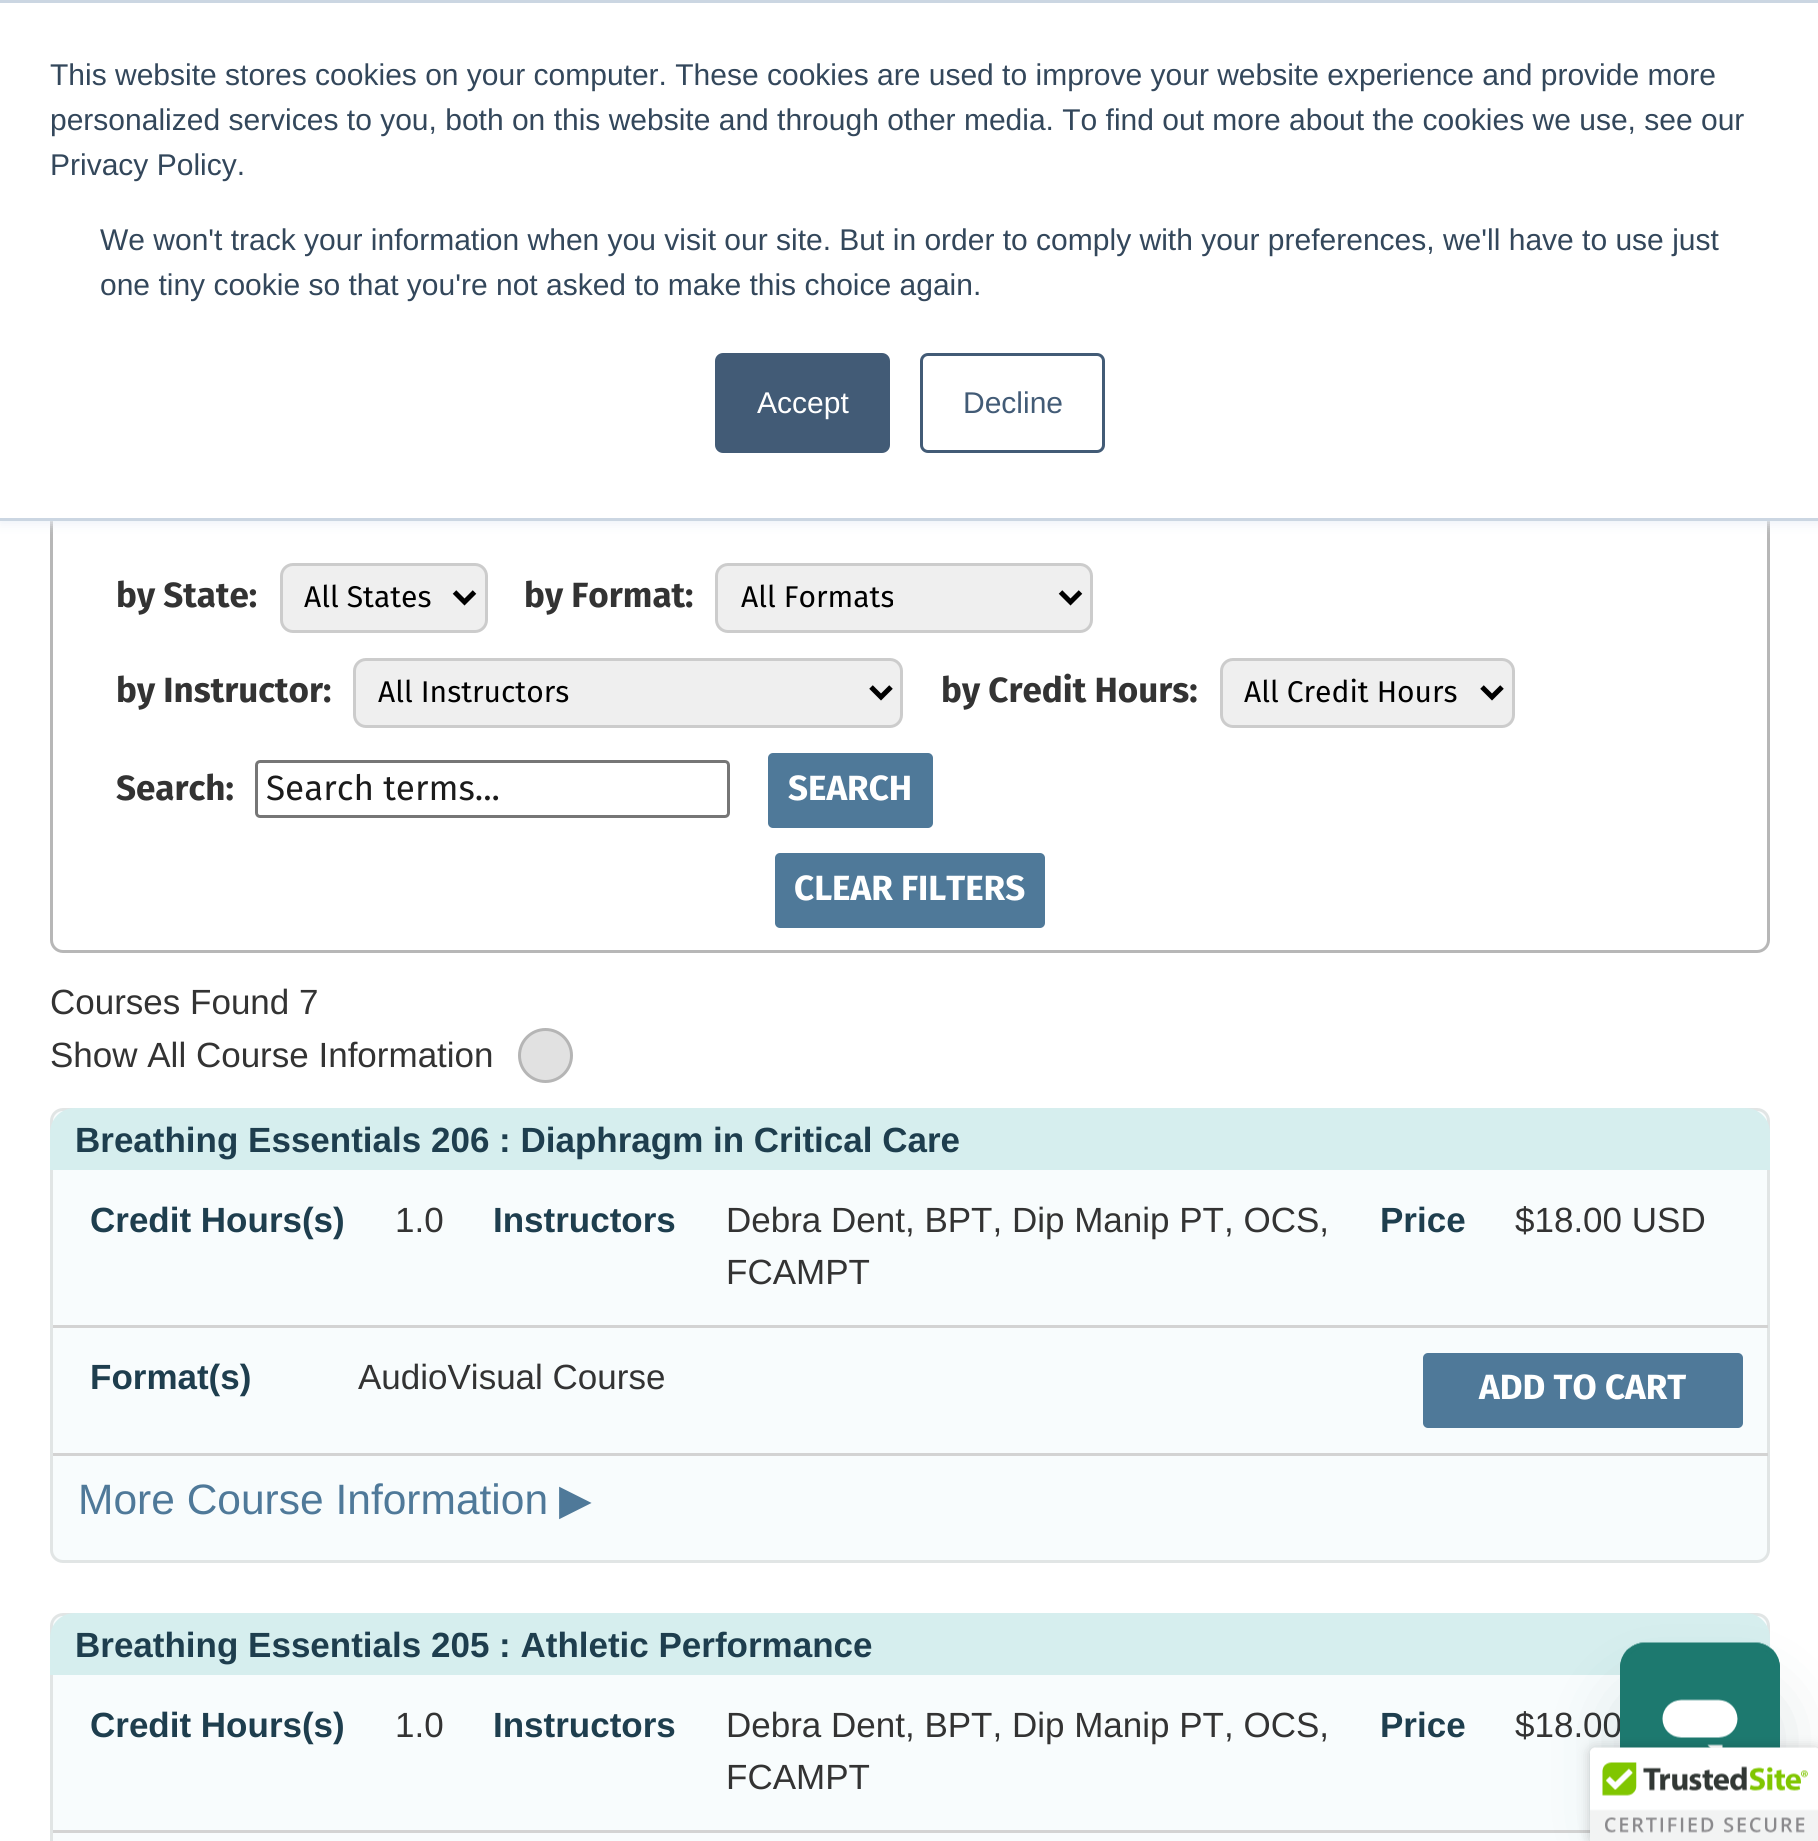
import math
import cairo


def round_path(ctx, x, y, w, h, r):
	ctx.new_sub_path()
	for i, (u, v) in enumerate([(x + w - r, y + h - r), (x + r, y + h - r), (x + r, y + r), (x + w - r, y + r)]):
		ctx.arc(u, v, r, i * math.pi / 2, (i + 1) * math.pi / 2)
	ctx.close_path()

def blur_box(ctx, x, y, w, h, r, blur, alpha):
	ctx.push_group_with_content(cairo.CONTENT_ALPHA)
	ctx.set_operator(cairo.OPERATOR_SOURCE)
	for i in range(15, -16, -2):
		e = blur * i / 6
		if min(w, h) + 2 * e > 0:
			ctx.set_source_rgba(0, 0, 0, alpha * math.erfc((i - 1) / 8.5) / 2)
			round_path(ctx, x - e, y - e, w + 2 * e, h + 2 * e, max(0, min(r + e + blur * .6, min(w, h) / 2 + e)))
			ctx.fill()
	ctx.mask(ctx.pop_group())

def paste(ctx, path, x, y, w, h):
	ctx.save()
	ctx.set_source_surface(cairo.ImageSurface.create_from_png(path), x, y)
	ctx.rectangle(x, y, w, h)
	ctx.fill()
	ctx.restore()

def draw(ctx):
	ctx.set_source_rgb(1, 1, 1)
	ctx.paint()
	round_path(ctx, 51.5, 461.5, 1717, 490, 11.5)
	ctx.set_source_rgb(0.718, 0.718, 0.718)
	ctx.set_line_width(3)
	ctx.stroke()
	ctx.set_source_rgb(0.918, 0.941, 0.965)
	blur_box(ctx, 0, 3, 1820, 520, 0, 6, 1)
	ctx.set_source_rgb(1, 1, 1)
	ctx.rectangle(0, 3, 1818, 515)
	ctx.fill()
	ctx.set_source_rgb(0.796, 0.839, 0.886)
	ctx.rectangle(0, 0, 1818, 3)
	ctx.rectangle(0, 518, 1818, 3)
	ctx.fill()
	ctx.select_font_face('Liberation Sans')
	ctx.set_font_size(30)
	ctx.set_source_rgb(0.2, 0.278, 0.357)
	for x, y, s in [
		(50, 85, 'This website stores cookies on your computer. These cookies are used to improve your website experience and provide more'),
		(50, 130, 'personalized services to you, both on this website and through other media. To find out more about the cookies we use, see our'),
		(50, 175, 'Privacy Policy.'),
		(100, 250, 'We won\'t track your information when you visit our site. But in order to comply with your preferences, we\'ll have to use just'),
		(100, 295, 'one tiny cookie so that you\'re not asked to make this choice again.'),
	]:
		ctx.move_to(x, y)
		ctx.show_text(s)
	ctx.set_source_rgb(0.259, 0.357, 0.463)
	round_path(ctx, 716.5, 354.5, 172, 97, 6.5)
	ctx.fill_preserve()
	ctx.stroke()
	ctx.set_source_rgb(1, 1, 1)
	ctx.move_to(757, 413)
	ctx.show_text('Accept')
	round_path(ctx, 921.5, 354.5, 182, 97, 6.5)
	ctx.set_source_rgb(0.259, 0.357, 0.463)
	ctx.stroke()
	ctx.move_to(963, 413)
	ctx.show_text('Decline')
	ctx.select_font_face('Fira Sans', cairo.FONT_SLANT_NORMAL, cairo.FONT_WEIGHT_BOLD)
	ctx.set_font_size(35)
	ctx.set_source_rgb(0.2, 0.2, 0.2)
	ctx.move_to(116, 607)
	ctx.show_text('by State:')
	ctx.set_source_rgb(0.937, 0.937, 0.937)
	round_path(ctx, 281.5, 564.5, 205, 67, 11.5)
	ctx.fill_preserve()
	ctx.set_source_rgb(0.8, 0.8, 0.8)
	ctx.stroke()
	ctx.new_path()
	ctx.move_to(454.5, 592)
	ctx.line_to(464.5, 602)
	ctx.line_to(474.5, 592)
	ctx.set_source_rgb(0, 0, 0)
	ctx.set_line_width(5)
	ctx.stroke()
	ctx.select_font_face('Fira Sans')
	ctx.set_font_size(30)
	ctx.move_to(304, 607)
	ctx.show_text('All States')
	ctx.select_font_face('Fira Sans', cairo.FONT_SLANT_NORMAL, cairo.FONT_WEIGHT_BOLD)
	ctx.set_font_size(35)
	ctx.set_source_rgb(0.2, 0.2, 0.2)
	ctx.move_to(524, 607)
	ctx.show_text('by Format:')
	ctx.set_source_rgb(0.937, 0.937, 0.937)
	round_path(ctx, 716.5, 564.5, 375, 67, 11.5)
	ctx.fill_preserve()
	ctx.set_source_rgb(0.8, 0.8, 0.8)
	ctx.set_line_width(3)
	ctx.stroke()
	ctx.new_path()
	ctx.move_to(1060.5, 592)
	ctx.line_to(1070.5, 602)
	ctx.line_to(1080.5, 592)
	ctx.set_source_rgb(0, 0, 0)
	ctx.set_line_width(5)
	ctx.stroke()
	ctx.select_font_face('Fira Sans')
	ctx.set_font_size(30)
	ctx.move_to(741, 607)
	ctx.show_text('All Formats')
	ctx.select_font_face('Fira Sans', cairo.FONT_SLANT_NORMAL, cairo.FONT_WEIGHT_BOLD)
	ctx.set_font_size(35)
	ctx.set_source_rgb(0.2, 0.2, 0.2)
	ctx.move_to(116, 702)
	ctx.show_text('by Instructor:')
	ctx.set_source_rgb(0.937, 0.937, 0.937)
	round_path(ctx, 354.5, 659.5, 547, 67, 11.5)
	ctx.fill_preserve()
	ctx.set_source_rgb(0.8, 0.8, 0.8)
	ctx.set_line_width(3)
	ctx.stroke()
	ctx.new_path()
	ctx.move_to(871, 687)
	ctx.line_to(881, 697)
	ctx.line_to(891, 687)
	ctx.set_source_rgb(0, 0, 0)
	ctx.set_line_width(5)
	ctx.stroke()
	ctx.select_font_face('Fira Sans')
	ctx.set_font_size(30)
	ctx.move_to(378, 702)
	ctx.show_text('All Instructors')
	ctx.select_font_face('Fira Sans', cairo.FONT_SLANT_NORMAL, cairo.FONT_WEIGHT_BOLD)
	ctx.set_font_size(35)
	ctx.set_source_rgb(0.2, 0.2, 0.2)
	ctx.move_to(941, 702)
	ctx.show_text('by Credit Hours:')
	ctx.set_source_rgb(0.937, 0.937, 0.937)
	round_path(ctx, 1221.5, 659.5, 292, 67, 11.5)
	ctx.fill_preserve()
	ctx.set_source_rgb(0.8, 0.8, 0.8)
	ctx.set_line_width(3)
	ctx.stroke()
	ctx.new_path()
	ctx.move_to(1482, 687)
	ctx.line_to(1492, 697)
	ctx.line_to(1502, 687)
	ctx.set_source_rgb(0, 0, 0)
	ctx.set_line_width(5)
	ctx.stroke()
	ctx.select_font_face('Fira Sans')
	ctx.set_font_size(30)
	ctx.move_to(1244, 702)
	ctx.show_text('All Credit Hours')
	ctx.select_font_face('Fira Sans', cairo.FONT_SLANT_NORMAL, cairo.FONT_WEIGHT_BOLD)
	ctx.set_font_size(35)
	ctx.set_source_rgb(0.2, 0.2, 0.2)
	ctx.move_to(116, 800)
	ctx.show_text('Search:')
	round_path(ctx, 256.5, 761.5, 472, 55, 3.5)
	ctx.set_source_rgb(0.463, 0.463, 0.463)
	ctx.set_line_width(3)
	ctx.stroke()
	ctx.select_font_face('Fira Sans')
	ctx.set_source_rgb(0.106, 0.106, 0.106)
	ctx.move_to(266, 800)
	ctx.show_text('Search terms...')
	ctx.set_source_rgb(0.31, 0.475, 0.6)
	round_path(ctx, 768, 753, 165, 75, 5)
	ctx.fill()
	ctx.select_font_face('Fira Sans', cairo.FONT_SLANT_NORMAL, cairo.FONT_WEIGHT_BOLD)
	ctx.set_source_rgb(1, 1, 1)
	ctx.move_to(788, 800)
	ctx.show_text('SEARCH')
	ctx.set_source_rgb(0.31, 0.475, 0.6)
	round_path(ctx, 775, 853, 270, 75, 5)
	ctx.fill()
	ctx.set_source_rgb(1, 1, 1)
	ctx.move_to(794, 900)
	ctx.show_text('CLEAR FILTERS')
	ctx.select_font_face('Liberation Sans')
	ctx.set_source_rgb(0.2, 0.2, 0.2)
	ctx.move_to(50, 1014)
	ctx.show_text('Courses Found 7')
	ctx.move_to(50, 1067)
	ctx.show_text('Show All Course Information')
	ctx.set_source_rgb(0.882, 0.882, 0.882)
	ctx.new_path()
	ctx.arc(545.5, 1055.5, 26, 0, 2 * math.pi)
	ctx.fill_preserve()
	ctx.set_source_rgb(0.71, 0.71, 0.71)
	ctx.stroke()
	ctx.set_source_rgb(0.969, 0.988, 0.992)
	round_path(ctx, 51.5, 1109.5, 1717, 452, 11.5)
	ctx.fill_preserve()
	ctx.set_source_rgb(0.882, 0.898, 0.898)
	ctx.stroke()
	ctx.set_source_rgb(0.839, 0.933, 0.933)
	ctx.new_path()
	ctx.move_to(75, 1108)
	ctx.line_to(1745, 1108)
	ctx.curve_to(1759, 1108, 1770, 1119, 1770, 1133)
	ctx.line_to(1770, 1170)
	ctx.line_to(50, 1170)
	ctx.line_to(50, 1133)
	ctx.curve_to(50, 1119, 61, 1108, 75, 1108)
	ctx.close_path()
	ctx.fill()
	ctx.select_font_face('Liberation Sans', cairo.FONT_SLANT_NORMAL, cairo.FONT_WEIGHT_BOLD)
	ctx.set_source_rgb(0.118, 0.243, 0.306)
	ctx.move_to(75, 1152)
	ctx.show_text('Breathing Essentials 206 : Diaphragm in Critical Care')
	ctx.set_source_rgb(0.827, 0.827, 0.827)
	ctx.rectangle(53, 1325, 1715, 3)
	ctx.fill()
	ctx.set_source_rgb(0.118, 0.243, 0.306)
	ctx.move_to(90, 1232)
	ctx.show_text('Credit Hours(s)')
	ctx.select_font_face('Liberation Sans')
	ctx.set_source_rgb(0.2, 0.2, 0.2)
	ctx.move_to(395, 1232)
	ctx.show_text('1.0')
	ctx.select_font_face('Liberation Sans', cairo.FONT_SLANT_NORMAL, cairo.FONT_WEIGHT_BOLD)
	ctx.set_source_rgb(0.118, 0.243, 0.306)
	ctx.move_to(493, 1232)
	ctx.show_text('Instructors')
	ctx.select_font_face('Liberation Sans')
	ctx.set_source_rgb(0.2, 0.2, 0.2)
	ctx.move_to(726, 1232)
	ctx.show_text('Debra Dent, BPT, Dip Manip PT, OCS,')
	ctx.move_to(726, 1284)
	ctx.show_text('FCAMPT')
	ctx.select_font_face('Liberation Sans', cairo.FONT_SLANT_NORMAL, cairo.FONT_WEIGHT_BOLD)
	ctx.set_source_rgb(0.118, 0.243, 0.306)
	ctx.move_to(1380, 1232)
	ctx.show_text('Price')
	ctx.select_font_face('Liberation Sans')
	ctx.set_source_rgb(0.2, 0.2, 0.2)
	ctx.move_to(1515, 1232)
	ctx.show_text('$18.00 USD')
	ctx.set_source_rgb(0.827, 0.827, 0.827)
	ctx.rectangle(53, 1453, 1715, 3)
	ctx.fill()
	ctx.select_font_face('Liberation Sans', cairo.FONT_SLANT_NORMAL, cairo.FONT_WEIGHT_BOLD)
	ctx.set_source_rgb(0.118, 0.243, 0.306)
	ctx.move_to(90, 1389)
	ctx.show_text('Format(s)')
	ctx.select_font_face('Liberation Sans')
	ctx.set_source_rgb(0.2, 0.2, 0.2)
	ctx.move_to(358, 1389)
	ctx.show_text('AudioVisual Course')
	ctx.set_source_rgb(0.31, 0.475, 0.6)
	round_path(ctx, 1423, 1353, 320, 75, 5)
	ctx.fill()
	ctx.select_font_face('Fira Sans', cairo.FONT_SLANT_NORMAL, cairo.FONT_WEIGHT_BOLD)
	ctx.set_source_rgb(1, 1, 1)
	ctx.move_to(1479, 1399)
	ctx.show_text('ADD TO CART')
	ctx.select_font_face('Liberation Sans')
	ctx.set_font_size(42.5)
	ctx.set_source_rgb(0.31, 0.475, 0.6)
	ctx.move_to(78, 1514)
	ctx.show_text('More Course Information')
	ctx.select_font_face('DejaVu Sans')
	ctx.move_to(559, 1514)
	ctx.show_text('▶')
	ctx.set_source_rgb(0.969, 0.988, 0.992)
	round_path(ctx, 51.5, 1614.5, 1717, 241, 11.5)
	ctx.fill_preserve()
	ctx.set_source_rgb(0.882, 0.898, 0.898)
	ctx.stroke()
	ctx.set_source_rgb(0.839, 0.933, 0.933)
	ctx.new_path()
	ctx.move_to(75, 1613)
	ctx.line_to(1745, 1613)
	ctx.curve_to(1759, 1613, 1770, 1624, 1770, 1638)
	ctx.line_to(1770, 1675)
	ctx.line_to(50, 1675)
	ctx.line_to(50, 1638)
	ctx.curve_to(50, 1624, 61, 1613, 75, 1613)
	ctx.close_path()
	ctx.fill()
	ctx.select_font_face('Liberation Sans', cairo.FONT_SLANT_NORMAL, cairo.FONT_WEIGHT_BOLD)
	ctx.set_font_size(35)
	ctx.set_source_rgb(0.118, 0.243, 0.306)
	ctx.move_to(75, 1657)
	ctx.show_text('Breathing Essentials 205 : Athletic Performance')
	ctx.set_source_rgb(0.827, 0.827, 0.827)
	ctx.rectangle(53, 1830, 1537, 3)
	ctx.fill()
	ctx.set_source_rgb(0.118, 0.243, 0.306)
	ctx.move_to(90, 1737)
	ctx.show_text('Credit Hours(s)')
	ctx.select_font_face('Liberation Sans')
	ctx.set_source_rgb(0.2, 0.2, 0.2)
	ctx.move_to(395, 1737)
	ctx.show_text('1.0')
	ctx.select_font_face('Liberation Sans', cairo.FONT_SLANT_NORMAL, cairo.FONT_WEIGHT_BOLD)
	ctx.set_source_rgb(0.118, 0.243, 0.306)
	ctx.move_to(493, 1737)
	ctx.show_text('Instructors')
	ctx.select_font_face('Liberation Sans')
	ctx.set_source_rgb(0.2, 0.2, 0.2)
	ctx.move_to(726, 1737)
	ctx.show_text('Debra Dent, BPT, Dip Manip PT, OCS,')
	ctx.move_to(726, 1789)
	ctx.show_text('FCAMPT')
	ctx.select_font_face('Liberation Sans', cairo.FONT_SLANT_NORMAL, cairo.FONT_WEIGHT_BOLD)
	ctx.set_source_rgb(0.118, 0.243, 0.306)
	ctx.move_to(1380, 1737)
	ctx.show_text('Price')
	ctx.select_font_face('Liberation Sans')
	ctx.set_source_rgb(0.2, 0.2, 0.2)
	ctx.move_to(1515, 1737)
	ctx.show_text('$18.00')
	ctx.set_source_rgb(0.09, 0.286, 0.302)
	blur_box(ctx, 1620, 1693, 160, 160, 25, 37.5, 0.15)
	paste(ctx, 'media/1.png', 1620, 1642, 160, 106)
	ctx.set_source_rgb(0, 0, 0)
	blur_box(ctx, 1590, 1748, 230, 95, 5, 6, 0.2)
	ctx.set_source_rgb(1, 1, 1)
	ctx.new_path()
	ctx.move_to(1595, 1748)
	ctx.line_to(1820, 1748)
	ctx.line_to(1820, 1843)
	ctx.line_to(1590, 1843)
	ctx.line_to(1590, 1753)
	ctx.curve_to(1590, 1750, 1592, 1748, 1595, 1748)
	ctx.close_path()
	ctx.fill()
	paste(ctx, 'media/2.png', 1590, 1747, 228, 94)


surface = cairo.ImageSurface(cairo.FORMAT_RGB24, 1818, 1841)
ctx = cairo.Context(surface)
options = cairo.FontOptions()
options.set_hint_metrics(cairo.HINT_METRICS_OFF)
options.set_hint_style(cairo.HINT_STYLE_NONE)
ctx.set_font_options(options)
ctx.set_miter_limit(4)
draw(ctx)
surface.write_to_png('image.png')
